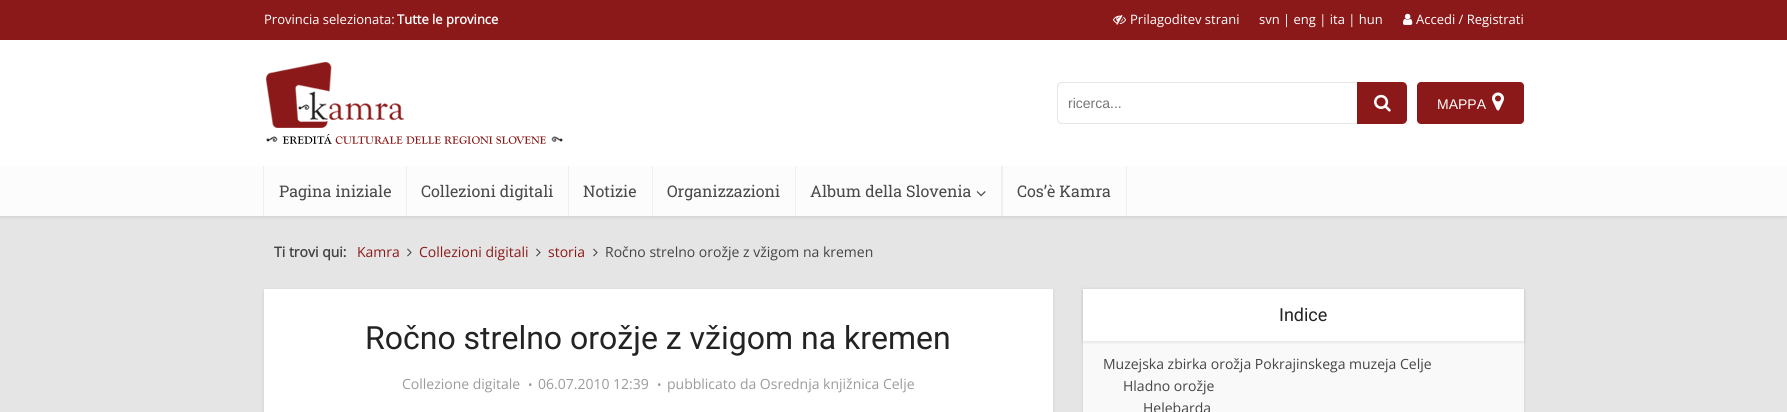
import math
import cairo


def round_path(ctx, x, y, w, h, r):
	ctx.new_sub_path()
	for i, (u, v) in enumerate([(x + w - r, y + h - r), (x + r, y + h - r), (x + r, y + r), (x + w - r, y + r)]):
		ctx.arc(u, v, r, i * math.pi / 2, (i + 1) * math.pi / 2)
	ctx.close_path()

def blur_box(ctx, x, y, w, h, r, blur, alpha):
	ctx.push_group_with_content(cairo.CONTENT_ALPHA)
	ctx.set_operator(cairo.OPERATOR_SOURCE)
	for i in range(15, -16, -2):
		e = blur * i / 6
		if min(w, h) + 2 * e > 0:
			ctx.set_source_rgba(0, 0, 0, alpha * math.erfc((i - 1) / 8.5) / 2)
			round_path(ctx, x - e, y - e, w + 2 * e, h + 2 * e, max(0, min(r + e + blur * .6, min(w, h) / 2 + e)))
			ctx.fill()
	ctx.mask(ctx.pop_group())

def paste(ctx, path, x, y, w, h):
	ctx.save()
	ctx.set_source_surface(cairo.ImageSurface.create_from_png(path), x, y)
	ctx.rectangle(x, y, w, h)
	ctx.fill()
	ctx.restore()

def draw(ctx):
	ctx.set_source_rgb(0.898, 0.898, 0.898)
	ctx.paint()
	ctx.set_source_rgb(0, 0, 0)
	blur_box(ctx, 0, 1, 1787, 216, 0, 1.5, 0.1)
	ctx.set_source_rgb(1, 1, 1)
	ctx.rectangle(0, 40, 1787, 126)
	ctx.fill()
	ctx.set_source_rgb(0.549, 0.098, 0.098)
	ctx.rectangle(0, 0, 1787, 40)
	ctx.fill()
	ctx.select_font_face('Open Sans')
	ctx.set_font_size(13)
	ctx.set_source_rgb(1, 1, 1)
	ctx.move_to(264, 24)
	ctx.show_text('Provincia selezionata:')
	ctx.select_font_face('Open Sans', cairo.FONT_SLANT_NORMAL, cairo.FONT_WEIGHT_BOLD)
	ctx.move_to(397, 24)
	ctx.show_text('Tutte le province')
	paste(ctx, 'media/1.png', 1113, 15, 13, 10)
	ctx.select_font_face('Open Sans')
	ctx.move_to(1130, 24)
	ctx.show_text('Prilagoditev strani')
	ctx.move_to(1259, 24)
	ctx.show_text('svn | eng | ita | hun')
	paste(ctx, 'media/2.png', 1403, 13, 10, 12)
	ctx.move_to(1416, 24)
	ctx.show_text('Accedi / Registrati')
	paste(ctx, 'media/3.png', 266, 62, 297, 82)
	ctx.set_source_rgb(0.902, 0.902, 0.902)
	ctx.set_fill_rule(cairo.FILL_RULE_EVEN_ODD)
	ctx.new_path()
	ctx.move_to(1062, 82)
	ctx.line_to(1357, 82)
	ctx.line_to(1357, 124)
	ctx.line_to(1062, 124)
	ctx.curve_to(1059, 124, 1057, 122, 1057, 119)
	ctx.line_to(1057, 87)
	ctx.curve_to(1057, 84, 1059, 82, 1062, 82)
	ctx.close_path()
	ctx.move_to(1062, 83)
	ctx.line_to(1357, 83)
	ctx.line_to(1357, 123)
	ctx.line_to(1062, 123)
	ctx.curve_to(1060, 123, 1058, 121, 1058, 119)
	ctx.line_to(1058, 87)
	ctx.curve_to(1058, 85, 1060, 83, 1062, 83)
	ctx.close_path()
	ctx.fill()
	ctx.select_font_face('Liberation Sans')
	ctx.set_font_size(14)
	ctx.set_source_rgb(0.459, 0.459, 0.459)
	ctx.move_to(1068, 108)
	ctx.show_text('ricerca...')
	ctx.set_source_rgb(0.549, 0.098, 0.098)
	ctx.new_path()
	ctx.move_to(1357, 82)
	ctx.line_to(1402, 82)
	ctx.curve_to(1405, 82, 1407, 84, 1407, 87)
	ctx.line_to(1407, 119)
	ctx.curve_to(1407, 122, 1405, 124, 1402, 124)
	ctx.line_to(1357, 124)
	ctx.close_path()
	ctx.fill()
	paste(ctx, 'media/4.png', 1374, 94, 17, 18)
	round_path(ctx, 1417, 82, 107, 42, 4)
	ctx.fill()
	ctx.set_source_rgb(1, 1, 1)
	ctx.move_to(1437, 109)
	ctx.show_text('MAPPA')
	paste(ctx, 'media/5.png', 1492, 92, 12, 19)
	ctx.set_source_rgb(0.988, 0.988, 0.988)
	ctx.rectangle(0, 166, 1787, 50)
	ctx.fill()
	ctx.set_source_rgb(0.937, 0.937, 0.937)
	ctx.rectangle(406, 166, 1, 50)
	ctx.rectangle(263, 166, 1, 50)
	ctx.fill()
	ctx.select_font_face('Roboto Slab')
	ctx.set_font_size(16)
	ctx.set_source_rgb(0.29, 0.29, 0.29)
	ctx.move_to(279, 197)
	ctx.show_text('Pagina iniziale')
	ctx.set_source_rgb(0.937, 0.937, 0.937)
	ctx.rectangle(568, 166, 1, 50)
	ctx.fill()
	ctx.set_source_rgb(0.29, 0.29, 0.29)
	ctx.move_to(421, 197)
	ctx.show_text('Collezioni digitali')
	ctx.set_source_rgb(0.937, 0.937, 0.937)
	ctx.rectangle(652, 166, 1, 50)
	ctx.fill()
	ctx.set_source_rgb(0.29, 0.29, 0.29)
	ctx.move_to(583, 197)
	ctx.show_text('Notizie')
	ctx.set_source_rgb(0.937, 0.937, 0.937)
	ctx.rectangle(795, 166, 1, 50)
	ctx.fill()
	ctx.set_source_rgb(0.29, 0.29, 0.29)
	ctx.move_to(667, 197)
	ctx.show_text('Organizzazioni')
	ctx.set_source_rgb(0.937, 0.937, 0.937)
	ctx.rectangle(1001, 166, 2, 50)
	ctx.fill()
	ctx.set_source_rgb(0.29, 0.29, 0.29)
	ctx.move_to(810, 197)
	ctx.show_text('Album della Slovenia')
	paste(ctx, 'media/6.png', 976, 191, 10, 6)
	ctx.set_source_rgb(0.937, 0.937, 0.937)
	ctx.rectangle(1126, 166, 1, 50)
	ctx.fill()
	ctx.set_source_rgb(0.29, 0.29, 0.29)
	ctx.move_to(1017, 197)
	ctx.show_text('Cos’è Kamra')
	ctx.select_font_face('Open Sans', cairo.FONT_SLANT_NORMAL, cairo.FONT_WEIGHT_BOLD)
	ctx.set_font_size(14)
	ctx.set_source_rgb(0.267, 0.267, 0.267)
	ctx.move_to(274, 257)
	ctx.show_text('Ti trovi qui:')
	ctx.select_font_face('Open Sans')
	ctx.set_source_rgb(0.549, 0.098, 0.098)
	ctx.move_to(357, 257)
	ctx.show_text('Kamra')
	paste(ctx, 'media/7.png', 407, 248, 5, 9)
	ctx.move_to(419, 257)
	ctx.show_text('Collezioni digitali')
	paste(ctx, 'media/7.png', 536, 248, 5, 9)
	ctx.move_to(548, 257)
	ctx.show_text('storia')
	paste(ctx, 'media/7.png', 593, 248, 5, 9)
	ctx.set_source_rgb(0.267, 0.267, 0.267)
	ctx.move_to(605, 257)
	ctx.show_text('Ročno strelno orožje z vžigom na kremen')
	ctx.set_source_rgb(0, 0, 0)
	blur_box(ctx, 264, 290, 789, 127, 0, 1.5, 0.1)
	ctx.set_source_rgb(1, 1, 1)
	ctx.rectangle(264, 289, 789, 123)
	ctx.fill()
	ctx.select_font_face('Roboto')
	ctx.set_font_size(32)
	ctx.set_source_rgb(0.137, 0.137, 0.137)
	ctx.move_to(365, 349)
	ctx.show_text('Ročno strelno orožje z vžigom na kremen')
	ctx.select_font_face('Open Sans')
	ctx.set_font_size(14)
	ctx.set_source_rgb(0.608, 0.608, 0.608)
	ctx.move_to(402, 389)
	ctx.show_text('Collezione digitale')
	ctx.set_font_size(12)
	ctx.move_to(528, 389)
	ctx.show_text('•')
	ctx.set_font_size(14)
	ctx.move_to(538, 389)
	ctx.show_text('06.07.2010 12:39')
	ctx.set_font_size(12)
	ctx.move_to(657, 389)
	ctx.show_text('•')
	ctx.set_font_size(14)
	ctx.move_to(667, 389)
	ctx.show_text('pubblicato da Osrednja knjižnica Celje')
	ctx.set_source_rgb(0, 0, 0)
	blur_box(ctx, 1083, 290, 441, 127, 0, 1.5, 0.1)
	ctx.set_source_rgb(0.976, 0.976, 0.976)
	ctx.rectangle(1083, 341, 441, 71)
	ctx.fill()
	ctx.set_source_rgb(0, 0, 0)
	blur_box(ctx, 1083, 290, 441, 52, 0, 1.5, 0.1)
	ctx.set_source_rgb(1, 1, 1)
	ctx.rectangle(1083, 289, 441, 52)
	ctx.fill()
	ctx.select_font_face('Roboto')
	ctx.set_font_size(18)
	ctx.set_source_rgb(0.137, 0.137, 0.137)
	ctx.move_to(1279, 321)
	ctx.show_text('Indice')
	ctx.select_font_face('Open Sans')
	ctx.set_font_size(14)
	ctx.set_source_rgb(0.267, 0.267, 0.267)
	for x, y, s in [
		(1103, 369, 'Muzejska zbirka orožja Pokrajinskega muzeja Celje'),
		(1123, 391, 'Hladno orožje'),
		(1143, 413, 'Helebarda'),
	]:
		ctx.move_to(x, y)
		ctx.show_text(s)


surface = cairo.ImageSurface(cairo.FORMAT_RGB24, 1787, 412)
ctx = cairo.Context(surface)
options = cairo.FontOptions()
options.set_hint_metrics(cairo.HINT_METRICS_OFF)
options.set_hint_style(cairo.HINT_STYLE_NONE)
ctx.set_font_options(options)
ctx.set_miter_limit(4)
draw(ctx)
surface.write_to_png('image.png')
